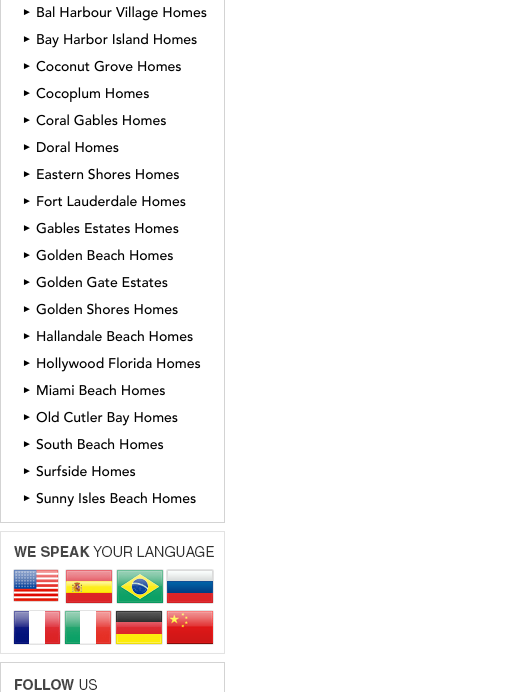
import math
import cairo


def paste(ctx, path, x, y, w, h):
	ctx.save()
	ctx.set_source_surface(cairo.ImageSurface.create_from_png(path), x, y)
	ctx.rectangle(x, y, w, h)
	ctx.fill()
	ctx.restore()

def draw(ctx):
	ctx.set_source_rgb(1, 1, 1)
	ctx.paint()
	ctx.rectangle(0.5, -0.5, 224, 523)
	ctx.set_source_rgb(0.827, 0.827, 0.827)
	ctx.set_line_width(1)
	ctx.stroke()
	ctx.select_font_face('Liberation Sans')
	ctx.set_font_size(10)
	ctx.set_source_rgb(0, 0, 0)
	ctx.move_to(22, 15)
	ctx.show_text('►')
	ctx.select_font_face('Avenir Medium')
	ctx.set_font_size(14)
	ctx.move_to(36, 17)
	ctx.show_text('Bal Harbour Village Homes')
	ctx.select_font_face('Liberation Sans')
	ctx.set_font_size(10)
	ctx.move_to(22, 42)
	ctx.show_text('►')
	ctx.select_font_face('Avenir Medium')
	ctx.set_font_size(14)
	ctx.move_to(36, 44)
	ctx.show_text('Bay Harbor Island Homes')
	ctx.select_font_face('Liberation Sans')
	ctx.set_font_size(10)
	ctx.move_to(22, 69)
	ctx.show_text('►')
	ctx.select_font_face('Avenir Medium')
	ctx.set_font_size(14)
	ctx.move_to(36, 71)
	ctx.show_text('Coconut Grove Homes')
	ctx.select_font_face('Liberation Sans')
	ctx.set_font_size(10)
	ctx.move_to(22, 96)
	ctx.show_text('►')
	ctx.select_font_face('Avenir Medium')
	ctx.set_font_size(14)
	ctx.move_to(36, 98)
	ctx.show_text('Cocoplum Homes')
	ctx.select_font_face('Liberation Sans')
	ctx.set_font_size(10)
	ctx.move_to(22, 123)
	ctx.show_text('►')
	ctx.select_font_face('Avenir Medium')
	ctx.set_font_size(14)
	ctx.move_to(36, 125)
	ctx.show_text('Coral Gables Homes')
	ctx.select_font_face('Liberation Sans')
	ctx.set_font_size(10)
	ctx.move_to(22, 150)
	ctx.show_text('►')
	ctx.select_font_face('Avenir Medium')
	ctx.set_font_size(14)
	ctx.move_to(36, 152)
	ctx.show_text('Doral Homes')
	ctx.select_font_face('Liberation Sans')
	ctx.set_font_size(10)
	ctx.move_to(22, 177)
	ctx.show_text('►')
	ctx.select_font_face('Avenir Medium')
	ctx.set_font_size(14)
	ctx.move_to(36, 179)
	ctx.show_text('Eastern Shores Homes')
	ctx.select_font_face('Liberation Sans')
	ctx.set_font_size(10)
	ctx.move_to(22, 204)
	ctx.show_text('►')
	ctx.select_font_face('Avenir Medium')
	ctx.set_font_size(14)
	ctx.move_to(36, 206)
	ctx.show_text('Fort Lauderdale Homes')
	ctx.select_font_face('Liberation Sans')
	ctx.set_font_size(10)
	ctx.move_to(22, 231)
	ctx.show_text('►')
	ctx.select_font_face('Avenir Medium')
	ctx.set_font_size(14)
	ctx.move_to(36, 233)
	ctx.show_text('Gables Estates Homes')
	ctx.select_font_face('Liberation Sans')
	ctx.set_font_size(10)
	ctx.move_to(22, 258)
	ctx.show_text('►')
	ctx.select_font_face('Avenir Medium')
	ctx.set_font_size(14)
	ctx.move_to(36, 260)
	ctx.show_text('Golden Beach Homes')
	ctx.select_font_face('Liberation Sans')
	ctx.set_font_size(10)
	ctx.move_to(22, 285)
	ctx.show_text('►')
	ctx.select_font_face('Avenir Medium')
	ctx.set_font_size(14)
	ctx.move_to(36, 287)
	ctx.show_text('Golden Gate Estates')
	ctx.select_font_face('Liberation Sans')
	ctx.set_font_size(10)
	ctx.move_to(22, 312)
	ctx.show_text('►')
	ctx.select_font_face('Avenir Medium')
	ctx.set_font_size(14)
	ctx.move_to(36, 314)
	ctx.show_text('Golden Shores Homes')
	ctx.select_font_face('Liberation Sans')
	ctx.set_font_size(10)
	ctx.move_to(22, 339)
	ctx.show_text('►')
	ctx.select_font_face('Avenir Medium')
	ctx.set_font_size(14)
	ctx.move_to(36, 341)
	ctx.show_text('Hallandale Beach Homes')
	ctx.select_font_face('Liberation Sans')
	ctx.set_font_size(10)
	ctx.move_to(22, 366)
	ctx.show_text('►')
	ctx.select_font_face('Avenir Medium')
	ctx.set_font_size(14)
	ctx.move_to(36, 368)
	ctx.show_text('Hollywood Florida Homes')
	ctx.select_font_face('Liberation Sans')
	ctx.set_font_size(10)
	ctx.move_to(22, 393)
	ctx.show_text('►')
	ctx.select_font_face('Avenir Medium')
	ctx.set_font_size(14)
	ctx.move_to(36, 395)
	ctx.show_text('Miami Beach Homes')
	ctx.select_font_face('Liberation Sans')
	ctx.set_font_size(10)
	ctx.move_to(22, 420)
	ctx.show_text('►')
	ctx.select_font_face('Avenir Medium')
	ctx.set_font_size(14)
	ctx.move_to(36, 422)
	ctx.show_text('Old Cutler Bay Homes')
	ctx.select_font_face('Liberation Sans')
	ctx.set_font_size(10)
	ctx.move_to(22, 447)
	ctx.show_text('►')
	ctx.select_font_face('Avenir Medium')
	ctx.set_font_size(14)
	ctx.move_to(36, 449)
	ctx.show_text('South Beach Homes')
	ctx.select_font_face('Liberation Sans')
	ctx.set_font_size(10)
	ctx.move_to(22, 474)
	ctx.show_text('►')
	ctx.select_font_face('Avenir Medium')
	ctx.set_font_size(14)
	ctx.move_to(36, 476)
	ctx.show_text('Surfside Homes')
	ctx.select_font_face('Liberation Sans')
	ctx.set_font_size(10)
	ctx.move_to(22, 501)
	ctx.show_text('►')
	ctx.select_font_face('Avenir Medium')
	ctx.set_font_size(14)
	ctx.move_to(36, 503)
	ctx.show_text('Sunny Isles Beach Homes')
	paste(ctx, 'media/1.png', 0, 531, 225, 123)
	paste(ctx, 'media/2.png', 13, 569, 46, 33)
	paste(ctx, 'media/3.png', 65, 569, 48, 35)
	paste(ctx, 'media/4.png', 116, 569, 48, 35)
	paste(ctx, 'media/5.png', 166, 569, 48, 35)
	paste(ctx, 'media/6.png', 13, 610, 48, 35)
	paste(ctx, 'media/7.png', 64, 610, 48, 35)
	paste(ctx, 'media/8.png', 115, 610, 48, 35)
	paste(ctx, 'media/9.png', 166, 610, 48, 35)
	paste(ctx, 'media/10.png', 15, 679, 82, 11)
	ctx.rectangle(0.5, 662.5, 224, 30)
	ctx.set_source_rgb(0.827, 0.827, 0.827)
	ctx.stroke()


surface = cairo.ImageSurface(cairo.FORMAT_RGB24, 518, 692)
ctx = cairo.Context(surface)
options = cairo.FontOptions()
options.set_hint_metrics(cairo.HINT_METRICS_OFF)
options.set_hint_style(cairo.HINT_STYLE_NONE)
ctx.set_font_options(options)
ctx.set_miter_limit(4)
draw(ctx)
surface.write_to_png('image.png')
